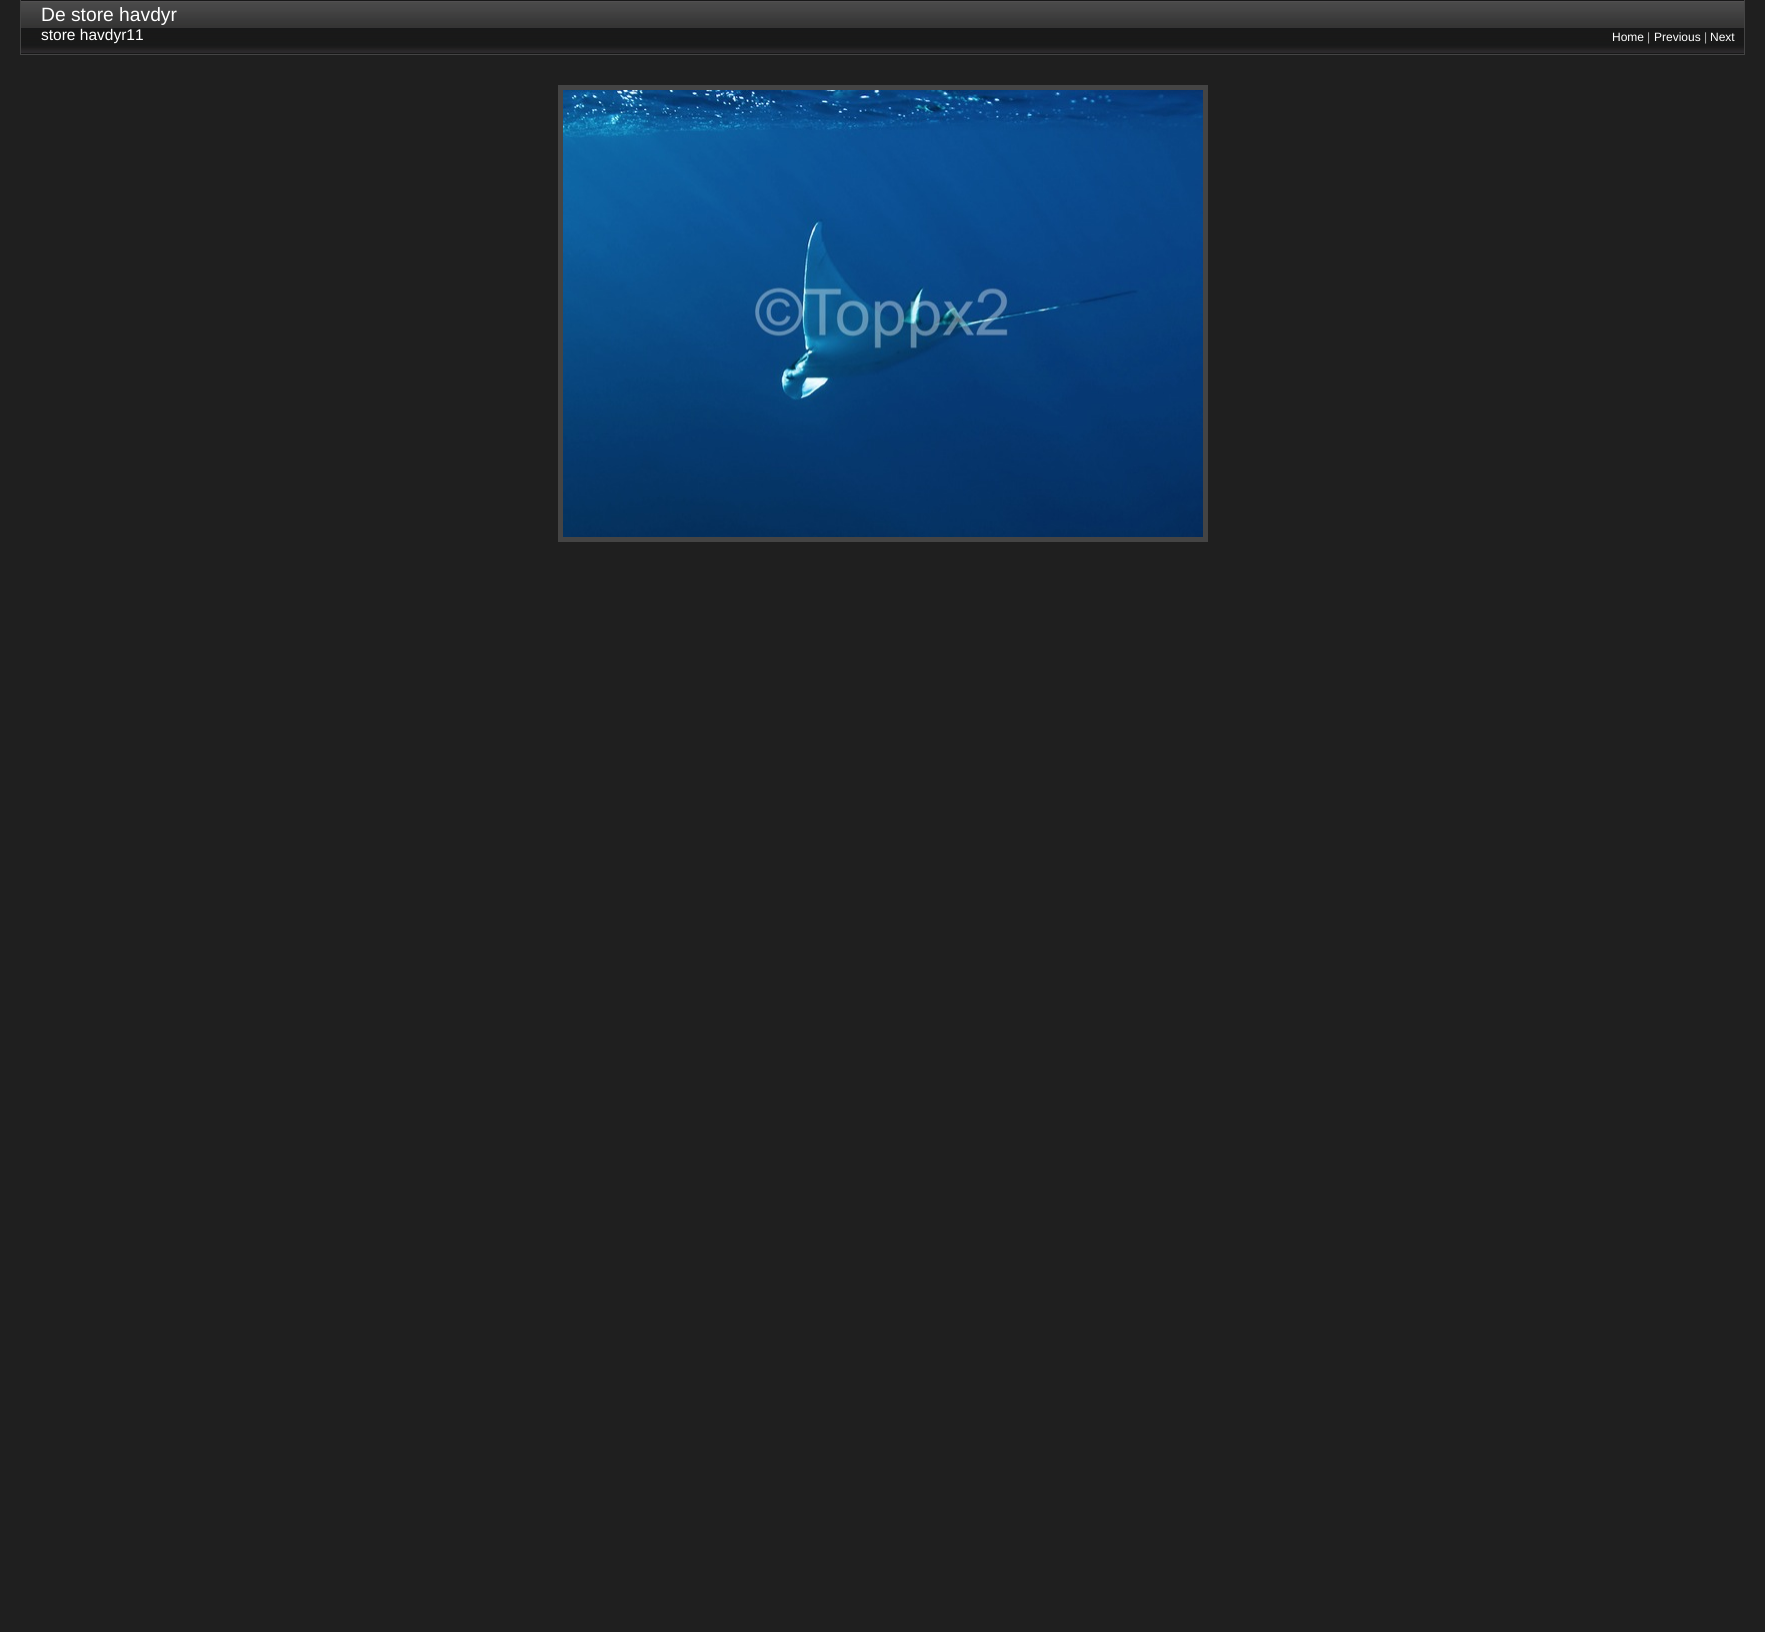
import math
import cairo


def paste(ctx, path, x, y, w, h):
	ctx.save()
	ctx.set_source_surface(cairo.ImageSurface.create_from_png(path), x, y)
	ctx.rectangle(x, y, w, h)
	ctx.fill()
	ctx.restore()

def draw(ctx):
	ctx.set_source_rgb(0.122, 0.122, 0.122)
	ctx.paint()
	paste(ctx, 'media/1.png', 21, 0, 1723, 54)
	ctx.set_source_rgb(0.267, 0.267, 0.267)
	ctx.rectangle(1744, 0, 1, 55)
	ctx.rectangle(20, 54, 1725, 1)
	ctx.rectangle(20, 0, 1, 55)
	ctx.fill()
	ctx.select_font_face('Liberation Sans')
	ctx.set_font_size(19.25)
	ctx.set_source_rgb(1, 1, 1)
	ctx.move_to(41, 21)
	ctx.show_text('De store havdyr')
	ctx.set_font_size(15.5)
	ctx.move_to(41, 40)
	ctx.show_text('store havdyr11')
	ctx.set_font_size(12)
	ctx.move_to(1612, 41)
	ctx.show_text('Home')
	ctx.set_source_rgb(0.702, 0.702, 0.702)
	ctx.move_to(1647, 41)
	ctx.show_text('|')
	ctx.set_source_rgb(1, 1, 1)
	ctx.move_to(1654, 41)
	ctx.show_text('Previous')
	ctx.set_source_rgb(0.702, 0.702, 0.702)
	ctx.move_to(1704, 41)
	ctx.show_text('|')
	ctx.set_source_rgb(1, 1, 1)
	ctx.move_to(1710, 41)
	ctx.show_text('Next')
	ctx.set_source_rgb(0.267, 0.267, 0.267)
	ctx.rectangle(558, 85, 650, 457)
	ctx.fill()
	paste(ctx, 'media/2.png', 563, 90, 640, 447)


surface = cairo.ImageSurface(cairo.FORMAT_RGB24, 1765, 1632)
ctx = cairo.Context(surface)
options = cairo.FontOptions()
options.set_hint_metrics(cairo.HINT_METRICS_OFF)
options.set_hint_style(cairo.HINT_STYLE_NONE)
ctx.set_font_options(options)
ctx.set_miter_limit(4)
draw(ctx)
surface.write_to_png('image.png')
